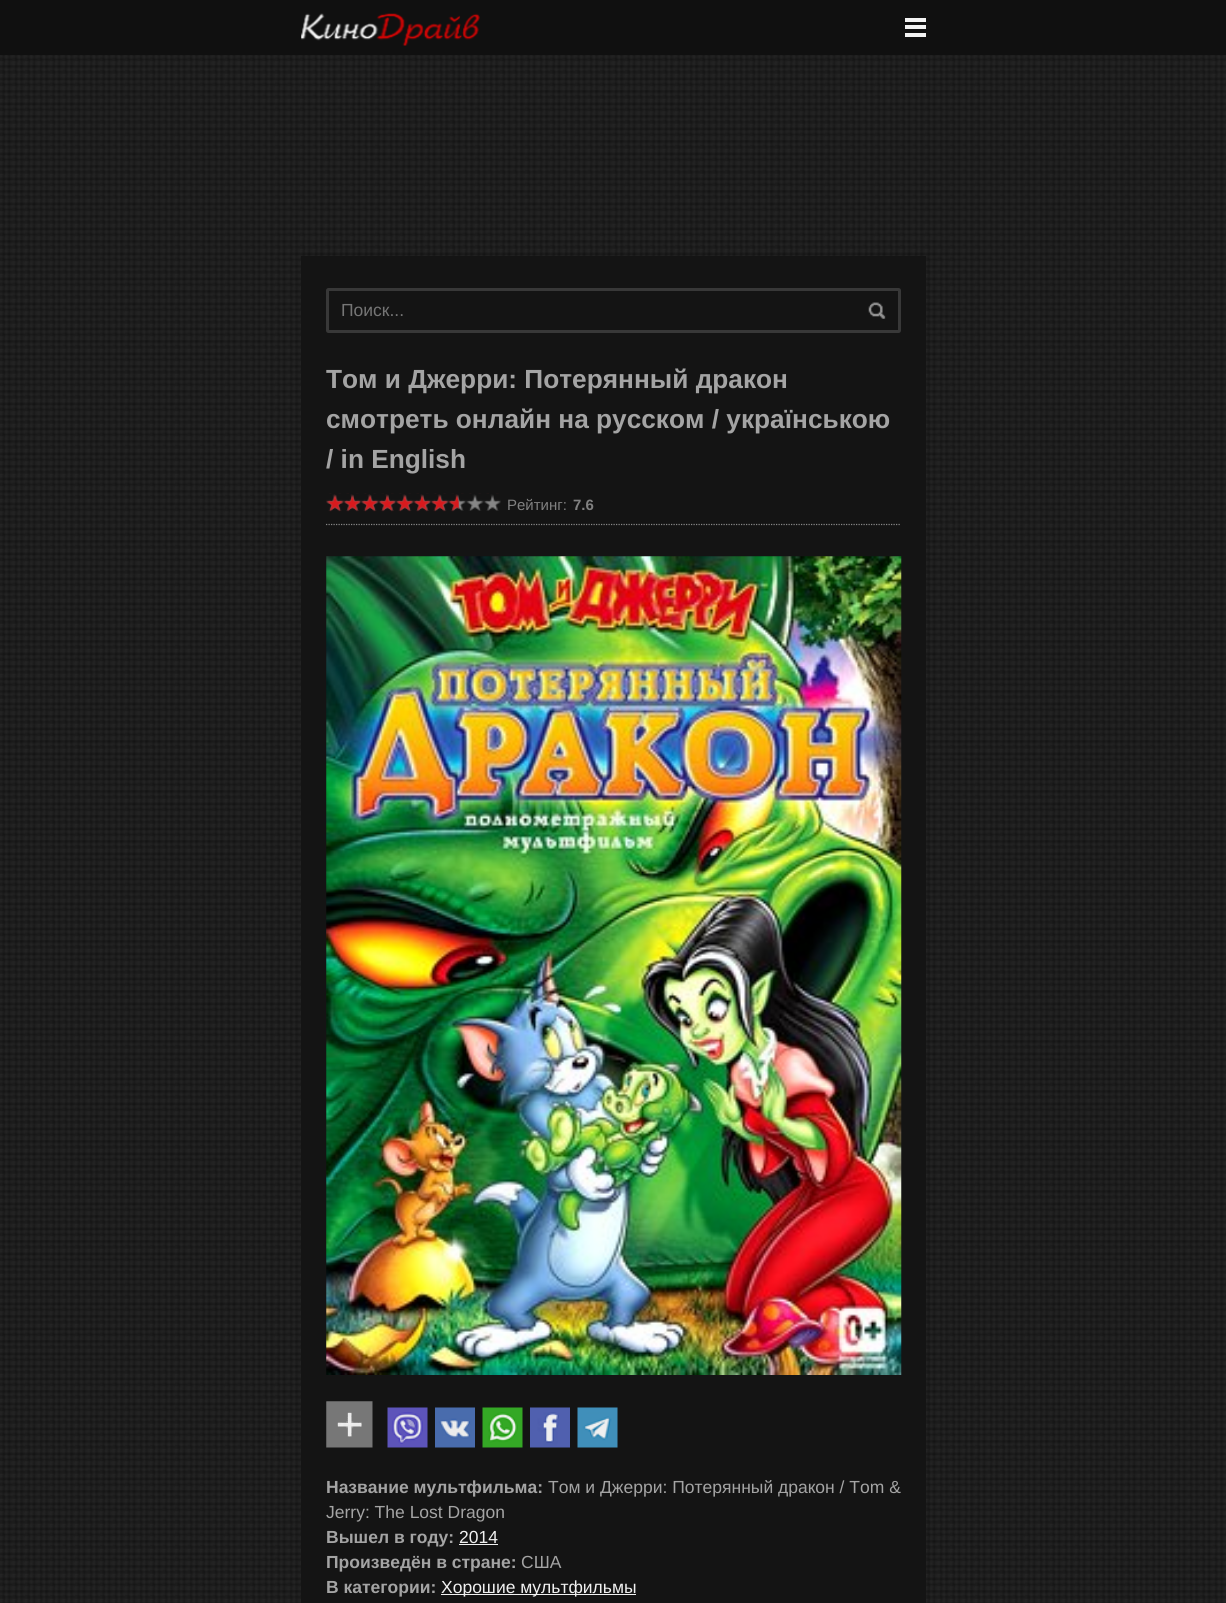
import math
import cairo


def round_path(ctx, x, y, w, h, r):
	ctx.new_sub_path()
	for i, (u, v) in enumerate([(x + w - r, y + h - r), (x + r, y + h - r), (x + r, y + r), (x + w - r, y + r)]):
		ctx.arc(u, v, r, i * math.pi / 2, (i + 1) * math.pi / 2)
	ctx.close_path()

def paste(ctx, path, x, y, w, h):
	ctx.save()
	ctx.set_source_surface(cairo.ImageSurface.create_from_png(path), x, y)
	ctx.rectangle(x, y, w, h)
	ctx.fill()
	ctx.restore()

def draw(ctx):
	ctx.set_source_rgb(1, 1, 1)
	ctx.paint()
	paste(ctx, 'media/1.png', 0, 55, 1226, 1548)
	ctx.set_source_rgb(0.063, 0.063, 0.063)
	ctx.rectangle(0, 0, 1226, 55)
	ctx.fill()
	paste(ctx, 'media/2.png', 301, 13, 179, 33)
	ctx.set_source_rgb(0.953, 0.953, 0.953)
	ctx.rectangle(905, 25, 21, 4)
	ctx.rectangle(905, 18, 21, 4)
	ctx.rectangle(905, 33, 21, 4)
	ctx.fill()
	ctx.set_source_rgb(0.082, 0.082, 0.082)
	ctx.rectangle(301, 256, 625, 1347)
	ctx.fill()
	round_path(ctx, 327.5, 289.5, 572, 42, 1)
	ctx.set_source_rgb(0.22, 0.22, 0.22)
	ctx.set_line_width(3)
	ctx.stroke()
	ctx.select_font_face('Liberation Sans')
	ctx.set_font_size(17.5)
	ctx.set_source_rgb(0.459, 0.459, 0.459)
	ctx.move_to(341, 316)
	ctx.show_text('Поиск...')
	paste(ctx, 'media/3.png', 868, 302, 18, 17)
	ctx.select_font_face('Liberation Sans', cairo.FONT_SLANT_NORMAL, cairo.FONT_WEIGHT_BOLD)
	ctx.set_font_size(26.25)
	ctx.set_source_rgb(0.643, 0.643, 0.643)
	for x, y, s in [
		(326, 388, 'Том и Джерри: Потерянный дракон'),
		(326, 428, 'смотреть онлайн на русском / українською'),
		(326, 468, '/ in English'),
	]:
		ctx.move_to(x, y)
		ctx.show_text(s)
	ctx.new_path()
	ctx.move_to(326, 524.5)
	ctx.line_to(901, 524.5)
	ctx.set_source_rgb(0.533, 0.533, 0.533)
	ctx.set_line_width(1.2)
	ctx.set_dash([1.25, 1.25])
	ctx.stroke()
	paste(ctx, 'media/4.png', 326, 493, 175, 18)
	paste(ctx, 'media/5.png', 326, 494, 133, 18)
	ctx.select_font_face('Liberation Sans')
	ctx.set_font_size(15)
	ctx.set_source_rgb(0.502, 0.502, 0.502)
	ctx.move_to(507, 510)
	ctx.show_text('Рейтинг:')
	ctx.select_font_face('Liberation Sans', cairo.FONT_SLANT_NORMAL, cairo.FONT_WEIGHT_BOLD)
	ctx.move_to(573, 510)
	ctx.show_text('7.6')
	paste(ctx, 'media/6.png', 326, 556, 576, 819)
	paste(ctx, 'media/7.png', 326, 1401, 47, 47)
	paste(ctx, 'media/8.png', 387, 1407, 41, 41)
	paste(ctx, 'media/9.png', 435, 1407, 40, 41)
	paste(ctx, 'media/10.png', 482, 1407, 41, 41)
	paste(ctx, 'media/11.png', 530, 1407, 40, 41)
	paste(ctx, 'media/12.png', 577, 1407, 41, 41)
	ctx.set_font_size(17.5)
	ctx.set_source_rgb(0.643, 0.643, 0.643)
	ctx.move_to(326, 1493)
	ctx.show_text('Название мультфильма:')
	ctx.select_font_face('Liberation Sans')
	ctx.move_to(548, 1493)
	ctx.show_text('Том и Джерри: Потерянный дракон / Tom &')
	ctx.move_to(326, 1518)
	ctx.show_text('Jerry: The Lost Dragon')
	ctx.select_font_face('Liberation Sans', cairo.FONT_SLANT_NORMAL, cairo.FONT_WEIGHT_BOLD)
	ctx.move_to(326, 1543)
	ctx.show_text('Вышел в году:')
	ctx.select_font_face('Liberation Sans')
	ctx.set_source_rgb(0.945, 0.945, 0.945)
	ctx.move_to(459, 1543)
	ctx.show_text('2014')
	ctx.rectangle(459, 1544, 39, 1)
	ctx.fill()
	ctx.select_font_face('Liberation Sans', cairo.FONT_SLANT_NORMAL, cairo.FONT_WEIGHT_BOLD)
	ctx.set_source_rgb(0.643, 0.643, 0.643)
	ctx.move_to(326, 1568)
	ctx.show_text('Произведён в стране:')
	ctx.select_font_face('Liberation Sans')
	ctx.move_to(521, 1568)
	ctx.show_text('США')
	ctx.select_font_face('Liberation Sans', cairo.FONT_SLANT_NORMAL, cairo.FONT_WEIGHT_BOLD)
	ctx.move_to(326, 1593)
	ctx.show_text('В категории:')
	ctx.set_source_rgb(0.945, 0.945, 0.945)
	ctx.rectangle(441, 1594, 195, 1)
	ctx.fill()
	ctx.select_font_face('Liberation Sans')
	ctx.move_to(441, 1593)
	ctx.show_text('Хорошие мультфильмы')


surface = cairo.ImageSurface(cairo.FORMAT_RGB24, 1226, 1603)
ctx = cairo.Context(surface)
options = cairo.FontOptions()
options.set_hint_metrics(cairo.HINT_METRICS_OFF)
options.set_hint_style(cairo.HINT_STYLE_NONE)
ctx.set_font_options(options)
ctx.set_miter_limit(4)
draw(ctx)
surface.write_to_png('image.png')
